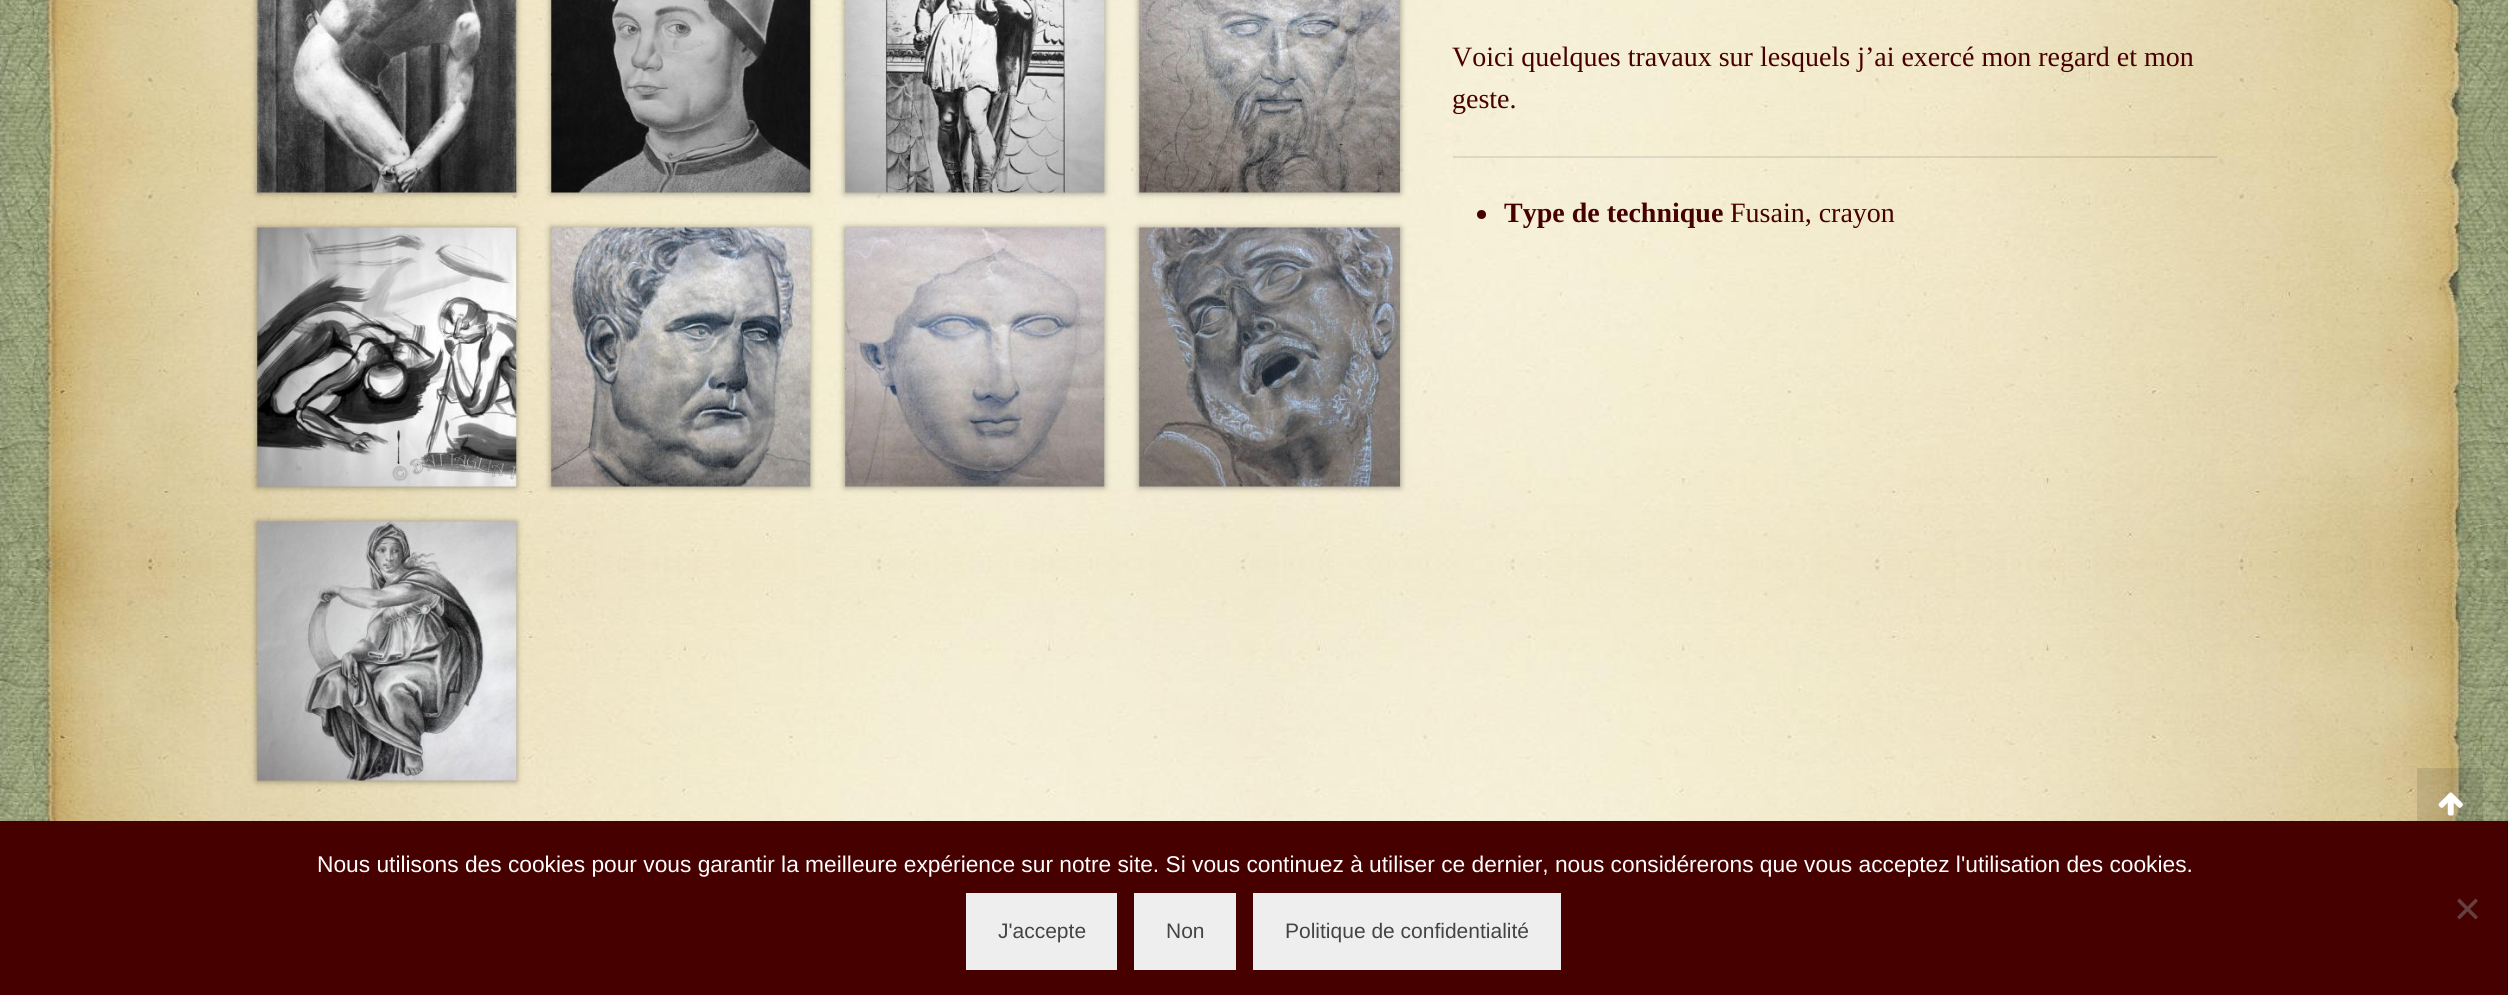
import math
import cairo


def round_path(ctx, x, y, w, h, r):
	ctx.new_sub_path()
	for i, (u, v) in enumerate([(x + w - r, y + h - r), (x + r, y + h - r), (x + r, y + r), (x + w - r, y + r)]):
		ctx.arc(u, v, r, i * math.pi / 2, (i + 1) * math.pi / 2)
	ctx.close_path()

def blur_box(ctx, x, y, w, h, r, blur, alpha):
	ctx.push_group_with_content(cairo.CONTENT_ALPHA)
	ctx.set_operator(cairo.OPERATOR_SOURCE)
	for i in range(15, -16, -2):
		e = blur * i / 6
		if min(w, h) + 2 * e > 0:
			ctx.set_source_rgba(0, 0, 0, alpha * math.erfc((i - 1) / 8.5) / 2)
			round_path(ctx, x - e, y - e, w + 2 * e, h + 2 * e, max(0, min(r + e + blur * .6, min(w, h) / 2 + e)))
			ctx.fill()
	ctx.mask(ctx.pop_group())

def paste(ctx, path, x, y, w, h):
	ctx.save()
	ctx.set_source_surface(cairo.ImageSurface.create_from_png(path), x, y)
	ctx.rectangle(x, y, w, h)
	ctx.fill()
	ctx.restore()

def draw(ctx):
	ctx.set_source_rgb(1, 1, 1)
	ctx.paint()
	paste(ctx, 'media/1.png', 0, 0, 2508, 821)
	ctx.new_path()
	ctx.move_to(257, 74.5)
	ctx.line_to(516, 74.5)
	ctx.set_source_rgb(0.278, 0, 0)
	ctx.set_line_width(1.8)
	ctx.set_dash([1.75, 1.75])
	ctx.stroke()
	ctx.set_source_rgb(0, 0, 0)
	blur_box(ctx, 257, -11, 259, 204, 0, 3.5, 0.4)
	paste(ctx, 'media/2.png', 257, 0, 260, 193)
	ctx.new_path()
	ctx.move_to(551, 74.5)
	ctx.line_to(810, 74.5)
	ctx.set_source_rgb(0.278, 0, 0)
	ctx.stroke()
	ctx.set_source_rgb(0, 0, 0)
	blur_box(ctx, 551, -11, 259, 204, 0, 3.5, 0.4)
	paste(ctx, 'media/3.png', 551, 0, 260, 193)
	ctx.new_path()
	ctx.move_to(845, 74.5)
	ctx.line_to(1104, 74.5)
	ctx.set_source_rgb(0.278, 0, 0)
	ctx.stroke()
	ctx.set_source_rgb(0, 0, 0)
	blur_box(ctx, 845, -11, 259, 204, 0, 3.5, 0.4)
	paste(ctx, 'media/4.png', 845, 0, 260, 193)
	ctx.new_path()
	ctx.move_to(1139, 74.5)
	ctx.line_to(1400, 74.5)
	ctx.set_source_rgb(0.278, 0, 0)
	ctx.stroke()
	ctx.set_source_rgb(0, 0, 0)
	blur_box(ctx, 1139, -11, 261, 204, 0, 3.5, 0.4)
	paste(ctx, 'media/5.png', 1139, 0, 261, 193)
	ctx.new_path()
	ctx.move_to(257, 368.5)
	ctx.line_to(516, 368.5)
	ctx.set_source_rgb(0.278, 0, 0)
	ctx.stroke()
	ctx.set_source_rgb(0, 0, 0)
	blur_box(ctx, 257, 228, 259, 259, 0, 3.5, 0.4)
	paste(ctx, 'media/6.png', 257, 227, 260, 260)
	ctx.new_path()
	ctx.move_to(551, 368.5)
	ctx.line_to(810, 368.5)
	ctx.set_source_rgb(0.278, 0, 0)
	ctx.stroke()
	ctx.set_source_rgb(0, 0, 0)
	blur_box(ctx, 551, 228, 259, 259, 0, 3.5, 0.4)
	paste(ctx, 'media/7.png', 551, 227, 260, 260)
	ctx.new_path()
	ctx.move_to(845, 368.5)
	ctx.line_to(1104, 368.5)
	ctx.set_source_rgb(0.278, 0, 0)
	ctx.stroke()
	ctx.set_source_rgb(0, 0, 0)
	blur_box(ctx, 845, 228, 259, 259, 0, 3.5, 0.4)
	paste(ctx, 'media/8.png', 845, 227, 260, 260)
	ctx.new_path()
	ctx.move_to(1139, 368.5)
	ctx.line_to(1400, 368.5)
	ctx.set_source_rgb(0.278, 0, 0)
	ctx.stroke()
	ctx.set_source_rgb(0, 0, 0)
	blur_box(ctx, 1139, 228, 261, 259, 0, 3.5, 0.4)
	paste(ctx, 'media/9.png', 1139, 227, 261, 260)
	ctx.new_path()
	ctx.move_to(257, 664)
	ctx.line_to(516, 664)
	ctx.set_source_rgb(0.278, 0, 0)
	ctx.stroke()
	ctx.set_source_rgb(0, 0, 0)
	blur_box(ctx, 257, 522, 259, 259, 0, 3.5, 0.4)
	paste(ctx, 'media/10.png', 257, 521, 260, 260)
	ctx.select_font_face('Liberation Serif')
	ctx.set_font_size(28)
	ctx.set_source_rgb(0.278, 0, 0)
	ctx.move_to(1452, 66)
	ctx.show_text('Voici quelques travaux sur lesquels j’ai exercé mon regard et mon')
	ctx.move_to(1452, 108)
	ctx.show_text('geste.')
	ctx.set_source_rgba(0, 0, 0, 0.1)
	ctx.rectangle(1453, 156, 764, 2)
	ctx.fill()
	ctx.set_source_rgb(0.278, 0, 0)
	ctx.arc(1481.5, 214.5, 4.5, 0, 2 * math.pi)
	ctx.fill()
	ctx.select_font_face('Liberation Serif', cairo.FONT_SLANT_NORMAL, cairo.FONT_WEIGHT_BOLD)
	ctx.move_to(1504, 222)
	ctx.show_text('Type de technique')
	ctx.select_font_face('Liberation Serif')
	ctx.move_to(1730, 222)
	ctx.show_text('Fusain, crayon')
	ctx.set_source_rgba(0, 0, 0, 0.1)
	ctx.rectangle(2417, 768, 66, 53)
	ctx.fill()
	paste(ctx, 'media/11.png', 2438, 792, 25, 24)
	ctx.set_source_rgb(0.278, 0, 0)
	ctx.rectangle(0, 821, 2508, 174)
	ctx.fill()
	ctx.select_font_face('Liberation Sans')
	ctx.set_font_size(22.75)
	ctx.set_source_rgb(1, 1, 1)
	ctx.move_to(317, 872)
	ctx.show_text('Nous utilisons des cookies pour vous garantir la meilleure expérience sur notre site. Si vous continuez à utiliser ce dernier, nous considérerons que vous acceptez l\'utilisation des cookies.')
	ctx.set_source_rgb(0.392, 0.251, 0.251)
	ctx.new_path()
	ctx.move_to(2475.5, 898.5)
	ctx.line_to(2478, 901)
	ctx.line_to(2459.5, 919.5)
	ctx.line_to(2457, 917)
	ctx.close_path()
	ctx.fill()
	ctx.new_path()
	ctx.move_to(2457, 901)
	ctx.line_to(2459.5, 898.5)
	ctx.line_to(2478, 917)
	ctx.line_to(2475.5, 919.5)
	ctx.close_path()
	ctx.fill()
	ctx.set_source_rgb(0.933, 0.933, 0.933)
	ctx.rectangle(966, 893, 151, 77)
	ctx.fill()
	ctx.set_font_size(21)
	ctx.set_source_rgb(0.267, 0.267, 0.267)
	ctx.move_to(998, 938)
	ctx.show_text('J\'accepte')
	ctx.set_source_rgb(0.933, 0.933, 0.933)
	ctx.rectangle(1134, 893, 102, 77)
	ctx.fill()
	ctx.set_source_rgb(0.267, 0.267, 0.267)
	ctx.move_to(1166, 938)
	ctx.show_text('Non')
	ctx.set_source_rgb(0.933, 0.933, 0.933)
	ctx.rectangle(1253, 893, 308, 77)
	ctx.fill()
	ctx.set_source_rgb(0.267, 0.267, 0.267)
	ctx.move_to(1285, 938)
	ctx.show_text('Politique de confidentialité')


surface = cairo.ImageSurface(cairo.FORMAT_RGB24, 2508, 995)
ctx = cairo.Context(surface)
options = cairo.FontOptions()
options.set_hint_metrics(cairo.HINT_METRICS_OFF)
options.set_hint_style(cairo.HINT_STYLE_NONE)
ctx.set_font_options(options)
ctx.set_miter_limit(4)
draw(ctx)
surface.write_to_png('image.png')
